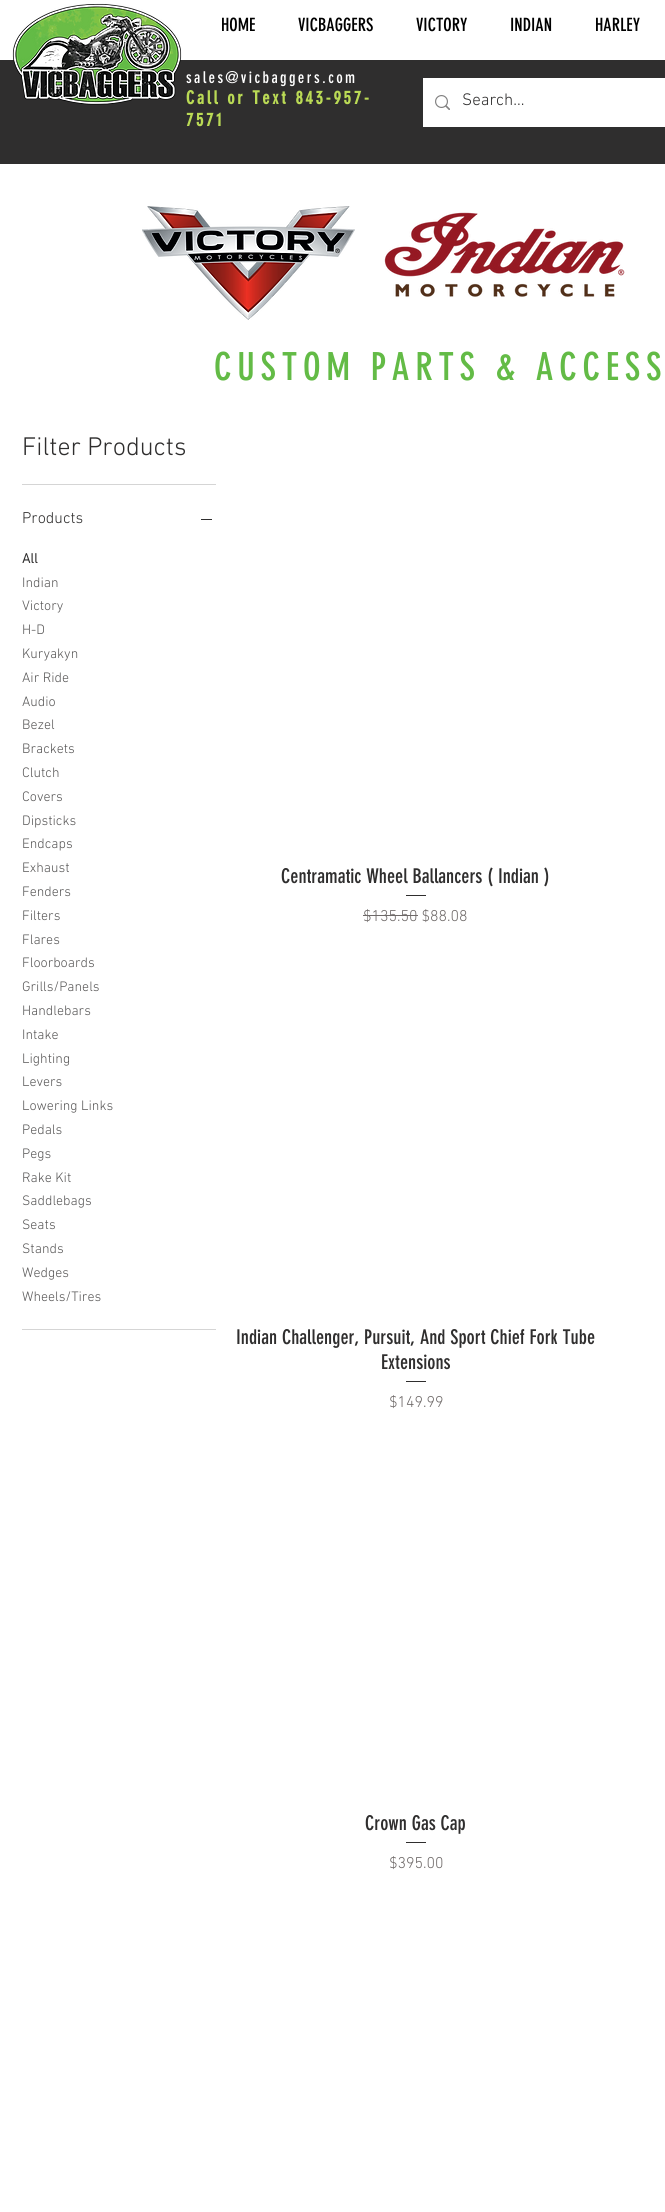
import math
import cairo


def write_spaced(ctx, x, y, s, letter, word):
	ctx.move_to(x, y)
	for ch in s:
		ctx.show_text(ch)
		ctx.rel_move_to(letter + word * (ch == ' '), 0)

def paste(ctx, path, x, y, w, h):
	ctx.save()
	ctx.set_source_surface(cairo.ImageSurface.create_from_png(path), x, y)
	ctx.rectangle(x, y, w, h)
	ctx.fill()
	ctx.restore()

def draw(ctx):
	ctx.set_source_rgb(1, 1, 1)
	ctx.paint()
	ctx.set_source_rgb(0.184, 0.18, 0.18)
	ctx.rectangle(0, 60, 665, 104)
	ctx.fill()
	paste(ctx, 'media/1.png', 12, 3, 170, 102)
	ctx.select_font_face('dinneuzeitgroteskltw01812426')
	ctx.set_font_size(18)
	ctx.set_source_rgb(0, 0, 0)
	for x, y, s in [
		(221, 31, 'HOME'),
		(298, 31, 'VICBAGGERS'),
		(416, 31, 'VICTORY'),
		(510, 31, 'INDIAN'),
		(595, 31, 'HARLEY'),
	]:
		ctx.move_to(x, y)
		ctx.show_text(s)
	ctx.set_font_size(16)
	ctx.set_source_rgb(1, 1, 1)
	write_spaced(ctx, 186, 83, 'sales@vicbaggers.com', 2.4, 0)
	ctx.select_font_face('dinneuzeitgroteskltw01812426', cairo.FONT_SLANT_NORMAL, cairo.FONT_WEIGHT_BOLD)
	ctx.set_font_size(18)
	ctx.set_source_rgb(0.729, 0.855, 0.333)
	write_spaced(ctx, 186, 104, 'Call or Text 843-957-', 2.7, 0)
	write_spaced(ctx, 186, 126, '7571', 2.7, 0)
	ctx.set_source_rgb(1, 1, 1)
	ctx.rectangle(423, 78, 242, 49)
	ctx.fill()
	paste(ctx, 'media/2.png', 435, 95, 15, 15)
	ctx.select_font_face('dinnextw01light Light')
	ctx.set_font_size(17)
	ctx.set_source_rgb(0.184, 0.18, 0.18)
	ctx.move_to(462, 105)
	ctx.show_text('Search...')
	paste(ctx, 'media/3.png', 142, 206, 213, 114)
	paste(ctx, 'media/4.png', 384, 212, 241, 85)
	ctx.select_font_face('dinneuzeitgroteskltw01812426')
	ctx.set_font_size(38)
	ctx.set_source_rgb(0.388, 0.733, 0.275)
	write_spaced(ctx, 214, 380, 'CUSTOM PARTS & ACCESS', 5.7, 0)
	ctx.set_source_rgb(0.835, 0.835, 0.835)
	ctx.rectangle(22, 484, 194, 1)
	ctx.fill()
	ctx.select_font_face('dinnextw01light Light')
	ctx.set_font_size(26)
	ctx.set_source_rgb(0.184, 0.18, 0.18)
	ctx.move_to(22, 455)
	ctx.show_text('Filter Products')
	ctx.set_source_rgb(0.835, 0.835, 0.835)
	ctx.rectangle(22, 1329, 194, 1)
	ctx.fill()
	ctx.set_font_size(16)
	ctx.set_source_rgb(0.184, 0.18, 0.18)
	ctx.move_to(22, 523)
	ctx.show_text('Products')
	ctx.rectangle(201, 519, 11, 1)
	ctx.fill()
	ctx.select_font_face('dinnextw01light', cairo.FONT_SLANT_NORMAL, cairo.FONT_WEIGHT_BOLD)
	ctx.set_font_size(14)
	ctx.move_to(22, 563)
	ctx.show_text('All')
	ctx.select_font_face('dinnextw01light Light')
	ctx.set_source_rgb(0.349, 0.345, 0.345)
	for x, y, s in [
		(22, 587, 'Indian'),
		(22, 610, 'Victory'),
		(22, 634, 'H-D'),
		(22, 658, 'Kuryakyn'),
		(22, 682, 'Air Ride'),
		(22, 706, 'Audio'),
		(22, 729, 'Bezel'),
		(22, 753, 'Brackets'),
		(22, 777, 'Clutch'),
		(22, 801, 'Covers'),
		(22, 825, 'Dipsticks'),
		(22, 848, 'Endcaps'),
		(22, 872, 'Exhaust'),
		(22, 896, 'Fenders'),
		(22, 920, 'Filters'),
		(22, 944, 'Flares'),
		(22, 967, 'Floorboards'),
		(22, 991, 'Grills/Panels'),
		(22, 1015, 'Handlebars'),
		(22, 1039, 'Intake'),
		(22, 1063, 'Lighting'),
		(22, 1086, 'Levers'),
		(22, 1110, 'Lowering Links'),
		(22, 1134, 'Pedals'),
		(22, 1158, 'Pegs'),
		(22, 1182, 'Rake Kit'),
		(22, 1205, 'Saddlebags'),
		(22, 1229, 'Seats'),
		(22, 1253, 'Stands'),
		(22, 1277, 'Wedges'),
		(22, 1301, 'Wheels/Tires'),
	]:
		ctx.move_to(x, y)
		ctx.show_text(s)
	ctx.select_font_face('dinneuzeitgroteskltw01812426')
	ctx.set_font_size(20)
	ctx.set_source_rgb(0.184, 0.18, 0.18)
	ctx.move_to(281, 883)
	ctx.show_text('Centramatic Wheel Ballancers ( Indian )')
	ctx.rectangle(406, 895, 20, 1)
	ctx.fill()
	ctx.select_font_face('dinnextw01light Light')
	ctx.set_font_size(16)
	ctx.set_source_rgb(0.431, 0.412, 0.408)
	ctx.move_to(363, 921)
	ctx.show_text('$135.50 $88.08')
	ctx.rectangle(363, 915, 55, 1)
	ctx.fill()
	ctx.select_font_face('dinneuzeitgroteskltw01812426')
	ctx.set_font_size(20)
	ctx.set_source_rgb(0.184, 0.18, 0.18)
	ctx.move_to(236, 1344)
	ctx.show_text('Indian Challenger, Pursuit, And Sport Chief Fork Tube')
	ctx.move_to(381, 1369)
	ctx.show_text('Extensions')
	ctx.rectangle(406, 1381, 20, 1)
	ctx.fill()
	ctx.select_font_face('dinnextw01light Light')
	ctx.set_font_size(16)
	ctx.set_source_rgb(0.431, 0.412, 0.408)
	ctx.move_to(389, 1407)
	ctx.show_text('$149.99')
	ctx.select_font_face('dinneuzeitgroteskltw01812426')
	ctx.set_font_size(20)
	ctx.set_source_rgb(0.184, 0.18, 0.18)
	ctx.move_to(365, 1830)
	ctx.show_text('Crown Gas Cap')
	ctx.rectangle(406, 1842, 20, 1)
	ctx.fill()
	ctx.select_font_face('dinnextw01light Light')
	ctx.set_font_size(16)
	ctx.set_source_rgb(0.431, 0.412, 0.408)
	ctx.move_to(389, 1868)
	ctx.show_text('$395.00')


surface = cairo.ImageSurface(cairo.FORMAT_RGB24, 665, 2212)
ctx = cairo.Context(surface)
options = cairo.FontOptions()
options.set_hint_metrics(cairo.HINT_METRICS_OFF)
options.set_hint_style(cairo.HINT_STYLE_NONE)
ctx.set_font_options(options)
ctx.set_miter_limit(4)
draw(ctx)
surface.write_to_png('image.png')
